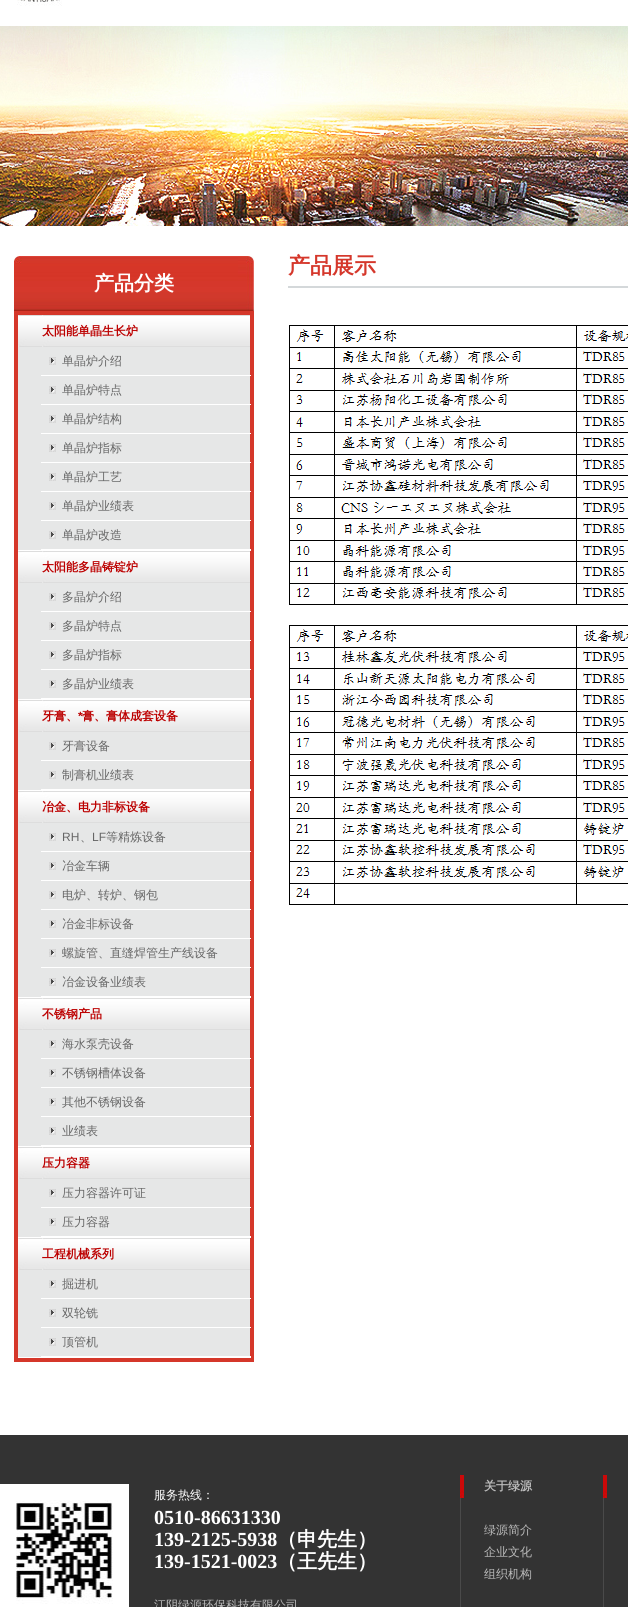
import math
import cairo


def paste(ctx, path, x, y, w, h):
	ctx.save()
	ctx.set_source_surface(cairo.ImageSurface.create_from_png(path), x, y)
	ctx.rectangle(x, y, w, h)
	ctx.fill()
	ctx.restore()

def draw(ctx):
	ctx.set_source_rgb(1, 1, 1)
	ctx.paint()
	paste(ctx, 'media/1.png', 17, 0, 45, 6)
	paste(ctx, 'media/2.png', 0, 26, 628, 200)
	ctx.select_font_face('WenQuanYi Zen Hei', cairo.FONT_SLANT_NORMAL, cairo.FONT_WEIGHT_BOLD)
	ctx.set_font_size(22)
	ctx.set_source_rgb(0.835, 0.216, 0.169)
	ctx.move_to(288, 273)
	ctx.show_text('产品展示')
	ctx.set_source_rgb(0.831, 0.847, 0.855)
	ctx.rectangle(288, 286, 340, 2)
	ctx.fill()
	paste(ctx, 'media/3.png', 289, 325, 339, 280)
	paste(ctx, 'media/4.png', 289, 625, 339, 280)
	paste(ctx, 'media/5.png', 14, 256, 240, 55)
	ctx.set_font_size(20)
	ctx.set_source_rgb(1, 1, 1)
	ctx.move_to(94, 290)
	ctx.show_text('产品分类')
	ctx.set_source_rgb(0.835, 0.216, 0.165)
	ctx.rectangle(14, 311, 240, 1051)
	ctx.fill()
	paste(ctx, 'media/6.png', 18, 315, 24, 32)
	paste(ctx, 'media/7.png', 42, 315, 208, 32)
	ctx.set_font_size(12)
	ctx.set_source_rgb(0.737, 0, 0)
	ctx.move_to(42, 335)
	ctx.show_text('太阳能单晶生长炉')
	ctx.set_source_rgb(0.902, 0.906, 0.906)
	ctx.rectangle(18, 347, 24, 203)
	ctx.fill()
	ctx.set_source_rgb(1, 1, 1)
	ctx.rectangle(41, 549, 210, 2)
	ctx.rectangle(18, 550, 24, 1)
	ctx.fill()
	ctx.set_source_rgb(0.902, 0.906, 0.906)
	ctx.rectangle(42, 347, 208, 202)
	ctx.fill()
	paste(ctx, 'media/8.png', 49, 357, 7, 8)
	ctx.set_source_rgb(1, 1, 1)
	ctx.rectangle(41, 375, 210, 1)
	ctx.fill()
	ctx.select_font_face('WenQuanYi Zen Hei Medium')
	ctx.set_source_rgb(0.4, 0.4, 0.4)
	ctx.move_to(62, 365)
	ctx.show_text('单晶炉介绍')
	paste(ctx, 'media/8.png', 49, 386, 7, 8)
	ctx.set_source_rgb(1, 1, 1)
	ctx.rectangle(41, 404, 210, 1)
	ctx.fill()
	ctx.set_source_rgb(0.4, 0.4, 0.4)
	ctx.move_to(62, 394)
	ctx.show_text('单晶炉特点')
	paste(ctx, 'media/8.png', 49, 415, 7, 8)
	ctx.set_source_rgb(1, 1, 1)
	ctx.rectangle(41, 433, 210, 1)
	ctx.fill()
	ctx.set_source_rgb(0.4, 0.4, 0.4)
	ctx.move_to(62, 423)
	ctx.show_text('单晶炉结构')
	paste(ctx, 'media/8.png', 49, 444, 7, 8)
	ctx.set_source_rgb(1, 1, 1)
	ctx.rectangle(41, 462, 210, 1)
	ctx.fill()
	ctx.set_source_rgb(0.4, 0.4, 0.4)
	ctx.move_to(62, 452)
	ctx.show_text('单晶炉指标')
	paste(ctx, 'media/8.png', 49, 473, 7, 8)
	ctx.set_source_rgb(1, 1, 1)
	ctx.rectangle(41, 491, 210, 1)
	ctx.fill()
	ctx.set_source_rgb(0.4, 0.4, 0.4)
	ctx.move_to(62, 481)
	ctx.show_text('单晶炉工艺')
	paste(ctx, 'media/8.png', 49, 502, 7, 8)
	ctx.set_source_rgb(1, 1, 1)
	ctx.rectangle(41, 520, 210, 1)
	ctx.fill()
	ctx.set_source_rgb(0.4, 0.4, 0.4)
	ctx.move_to(62, 510)
	ctx.show_text('单晶炉业绩表')
	paste(ctx, 'media/8.png', 49, 531, 7, 8)
	ctx.move_to(62, 539)
	ctx.show_text('单晶炉改造')
	paste(ctx, 'media/6.png', 18, 551, 24, 32)
	paste(ctx, 'media/7.png', 42, 551, 208, 32)
	ctx.select_font_face('WenQuanYi Zen Hei', cairo.FONT_SLANT_NORMAL, cairo.FONT_WEIGHT_BOLD)
	ctx.set_source_rgb(0.737, 0, 0)
	ctx.move_to(42, 571)
	ctx.show_text('太阳能多晶铸锭炉')
	ctx.set_source_rgb(0.902, 0.906, 0.906)
	ctx.rectangle(18, 583, 24, 116)
	ctx.fill()
	ctx.set_source_rgb(1, 1, 1)
	ctx.rectangle(41, 698, 210, 2)
	ctx.rectangle(18, 699, 24, 1)
	ctx.fill()
	ctx.set_source_rgb(0.902, 0.906, 0.906)
	ctx.rectangle(42, 583, 208, 115)
	ctx.fill()
	paste(ctx, 'media/8.png', 49, 593, 7, 8)
	ctx.set_source_rgb(1, 1, 1)
	ctx.rectangle(41, 611, 210, 1)
	ctx.fill()
	ctx.select_font_face('WenQuanYi Zen Hei Medium')
	ctx.set_source_rgb(0.4, 0.4, 0.4)
	ctx.move_to(62, 601)
	ctx.show_text('多晶炉介绍')
	paste(ctx, 'media/8.png', 49, 622, 7, 8)
	ctx.set_source_rgb(1, 1, 1)
	ctx.rectangle(41, 640, 210, 1)
	ctx.fill()
	ctx.set_source_rgb(0.4, 0.4, 0.4)
	ctx.move_to(62, 630)
	ctx.show_text('多晶炉特点')
	paste(ctx, 'media/8.png', 49, 651, 7, 8)
	ctx.set_source_rgb(1, 1, 1)
	ctx.rectangle(41, 669, 210, 1)
	ctx.fill()
	ctx.set_source_rgb(0.4, 0.4, 0.4)
	ctx.move_to(62, 659)
	ctx.show_text('多晶炉指标')
	paste(ctx, 'media/8.png', 49, 680, 7, 8)
	ctx.move_to(62, 688)
	ctx.show_text('多晶炉业绩表')
	paste(ctx, 'media/6.png', 18, 700, 24, 32)
	paste(ctx, 'media/7.png', 42, 700, 208, 32)
	ctx.select_font_face('WenQuanYi Zen Hei', cairo.FONT_SLANT_NORMAL, cairo.FONT_WEIGHT_BOLD)
	ctx.set_source_rgb(0.737, 0, 0)
	ctx.move_to(42, 720)
	ctx.show_text('牙膏、')
	ctx.select_font_face('Liberation Sans', cairo.FONT_SLANT_NORMAL, cairo.FONT_WEIGHT_BOLD)
	ctx.move_to(78, 720)
	ctx.show_text('*')
	ctx.select_font_face('WenQuanYi Zen Hei', cairo.FONT_SLANT_NORMAL, cairo.FONT_WEIGHT_BOLD)
	ctx.move_to(82, 720)
	ctx.show_text('膏、膏体成套设备')
	ctx.set_source_rgb(0.902, 0.906, 0.906)
	ctx.rectangle(18, 732, 24, 58)
	ctx.fill()
	ctx.set_source_rgb(1, 1, 1)
	ctx.rectangle(41, 789, 210, 2)
	ctx.rectangle(18, 790, 24, 1)
	ctx.fill()
	ctx.set_source_rgb(0.902, 0.906, 0.906)
	ctx.rectangle(42, 732, 208, 57)
	ctx.fill()
	paste(ctx, 'media/8.png', 49, 742, 7, 8)
	ctx.set_source_rgb(1, 1, 1)
	ctx.rectangle(41, 760, 210, 1)
	ctx.fill()
	ctx.select_font_face('WenQuanYi Zen Hei Medium')
	ctx.set_source_rgb(0.4, 0.4, 0.4)
	ctx.move_to(62, 750)
	ctx.show_text('牙膏设备')
	paste(ctx, 'media/8.png', 49, 771, 7, 8)
	ctx.move_to(62, 779)
	ctx.show_text('制膏机业绩表')
	paste(ctx, 'media/6.png', 18, 791, 24, 32)
	paste(ctx, 'media/7.png', 42, 791, 208, 32)
	ctx.select_font_face('WenQuanYi Zen Hei', cairo.FONT_SLANT_NORMAL, cairo.FONT_WEIGHT_BOLD)
	ctx.set_source_rgb(0.737, 0, 0)
	ctx.move_to(42, 811)
	ctx.show_text('冶金、电力非标设备')
	ctx.set_source_rgb(0.902, 0.906, 0.906)
	ctx.rectangle(18, 823, 24, 174)
	ctx.fill()
	ctx.set_source_rgb(1, 1, 1)
	ctx.rectangle(41, 996, 210, 2)
	ctx.rectangle(18, 997, 24, 1)
	ctx.fill()
	ctx.set_source_rgb(0.902, 0.906, 0.906)
	ctx.rectangle(42, 823, 208, 173)
	ctx.fill()
	paste(ctx, 'media/8.png', 49, 833, 7, 8)
	ctx.set_source_rgb(1, 1, 1)
	ctx.rectangle(41, 851, 210, 1)
	ctx.fill()
	ctx.select_font_face('Liberation Sans')
	ctx.set_source_rgb(0.4, 0.4, 0.4)
	ctx.move_to(62, 841)
	ctx.show_text('RH')
	ctx.move_to(92, 841)
	ctx.show_text('LF')
	ctx.select_font_face('WenQuanYi Zen Hei Medium')
	ctx.move_to(106, 841)
	ctx.show_text('等精炼设备')
	ctx.move_to(80, 841)
	ctx.show_text('、')
	paste(ctx, 'media/8.png', 49, 862, 7, 8)
	ctx.set_source_rgb(1, 1, 1)
	ctx.rectangle(41, 880, 210, 1)
	ctx.fill()
	ctx.set_source_rgb(0.4, 0.4, 0.4)
	ctx.move_to(62, 870)
	ctx.show_text('冶金车辆')
	paste(ctx, 'media/8.png', 49, 891, 7, 8)
	ctx.set_source_rgb(1, 1, 1)
	ctx.rectangle(41, 909, 210, 1)
	ctx.fill()
	ctx.set_source_rgb(0.4, 0.4, 0.4)
	ctx.move_to(62, 899)
	ctx.show_text('电炉、转炉、钢包')
	paste(ctx, 'media/8.png', 49, 920, 7, 8)
	ctx.set_source_rgb(1, 1, 1)
	ctx.rectangle(41, 938, 210, 1)
	ctx.fill()
	ctx.set_source_rgb(0.4, 0.4, 0.4)
	ctx.move_to(62, 928)
	ctx.show_text('冶金非标设备')
	paste(ctx, 'media/8.png', 49, 949, 7, 8)
	ctx.set_source_rgb(1, 1, 1)
	ctx.rectangle(41, 967, 210, 1)
	ctx.fill()
	ctx.set_source_rgb(0.4, 0.4, 0.4)
	ctx.move_to(62, 957)
	ctx.show_text('螺旋管、直缝焊管生产线设备')
	paste(ctx, 'media/8.png', 49, 978, 7, 8)
	ctx.move_to(62, 986)
	ctx.show_text('冶金设备业绩表')
	paste(ctx, 'media/6.png', 18, 998, 24, 32)
	paste(ctx, 'media/7.png', 42, 998, 208, 32)
	ctx.select_font_face('WenQuanYi Zen Hei', cairo.FONT_SLANT_NORMAL, cairo.FONT_WEIGHT_BOLD)
	ctx.set_source_rgb(0.737, 0, 0)
	ctx.move_to(42, 1018)
	ctx.show_text('不锈钢产品')
	ctx.set_source_rgb(0.902, 0.906, 0.906)
	ctx.rectangle(18, 1030, 24, 116)
	ctx.fill()
	ctx.set_source_rgb(1, 1, 1)
	ctx.rectangle(41, 1145, 210, 2)
	ctx.rectangle(18, 1146, 24, 1)
	ctx.fill()
	ctx.set_source_rgb(0.902, 0.906, 0.906)
	ctx.rectangle(42, 1030, 208, 115)
	ctx.fill()
	paste(ctx, 'media/8.png', 49, 1040, 7, 8)
	ctx.set_source_rgb(1, 1, 1)
	ctx.rectangle(41, 1058, 210, 1)
	ctx.fill()
	ctx.select_font_face('WenQuanYi Zen Hei Medium')
	ctx.set_source_rgb(0.4, 0.4, 0.4)
	ctx.move_to(62, 1048)
	ctx.show_text('海水泵壳设备')
	paste(ctx, 'media/8.png', 49, 1069, 7, 8)
	ctx.set_source_rgb(1, 1, 1)
	ctx.rectangle(41, 1087, 210, 1)
	ctx.fill()
	ctx.set_source_rgb(0.4, 0.4, 0.4)
	ctx.move_to(62, 1077)
	ctx.show_text('不锈钢槽体设备')
	paste(ctx, 'media/8.png', 49, 1098, 7, 8)
	ctx.set_source_rgb(1, 1, 1)
	ctx.rectangle(41, 1116, 210, 1)
	ctx.fill()
	ctx.set_source_rgb(0.4, 0.4, 0.4)
	ctx.move_to(62, 1106)
	ctx.show_text('其他不锈钢设备')
	paste(ctx, 'media/8.png', 49, 1127, 7, 8)
	ctx.move_to(62, 1135)
	ctx.show_text('业绩表')
	paste(ctx, 'media/6.png', 18, 1147, 24, 32)
	paste(ctx, 'media/7.png', 42, 1147, 208, 32)
	ctx.select_font_face('WenQuanYi Zen Hei', cairo.FONT_SLANT_NORMAL, cairo.FONT_WEIGHT_BOLD)
	ctx.set_source_rgb(0.737, 0, 0)
	ctx.move_to(42, 1167)
	ctx.show_text('压力容器')
	ctx.set_source_rgb(0.902, 0.906, 0.906)
	ctx.rectangle(18, 1179, 24, 58)
	ctx.fill()
	ctx.set_source_rgb(1, 1, 1)
	ctx.rectangle(41, 1236, 210, 2)
	ctx.rectangle(18, 1237, 24, 1)
	ctx.fill()
	ctx.set_source_rgb(0.902, 0.906, 0.906)
	ctx.rectangle(42, 1179, 208, 57)
	ctx.fill()
	paste(ctx, 'media/8.png', 49, 1189, 7, 8)
	ctx.set_source_rgb(1, 1, 1)
	ctx.rectangle(41, 1207, 210, 1)
	ctx.fill()
	ctx.select_font_face('WenQuanYi Zen Hei Medium')
	ctx.set_source_rgb(0.4, 0.4, 0.4)
	ctx.move_to(62, 1197)
	ctx.show_text('压力容器许可证')
	paste(ctx, 'media/8.png', 49, 1218, 7, 8)
	ctx.move_to(62, 1226)
	ctx.show_text('压力容器')
	paste(ctx, 'media/6.png', 18, 1238, 24, 32)
	paste(ctx, 'media/7.png', 42, 1238, 208, 32)
	ctx.select_font_face('WenQuanYi Zen Hei', cairo.FONT_SLANT_NORMAL, cairo.FONT_WEIGHT_BOLD)
	ctx.set_source_rgb(0.737, 0, 0)
	ctx.move_to(42, 1258)
	ctx.show_text('工程机械系列')
	ctx.set_source_rgb(0.902, 0.906, 0.906)
	ctx.rectangle(18, 1270, 24, 87)
	ctx.fill()
	ctx.set_source_rgb(1, 1, 1)
	ctx.rectangle(41, 1356, 210, 2)
	ctx.rectangle(18, 1357, 24, 1)
	ctx.fill()
	ctx.set_source_rgb(0.902, 0.906, 0.906)
	ctx.rectangle(42, 1270, 208, 86)
	ctx.fill()
	paste(ctx, 'media/8.png', 49, 1280, 7, 8)
	ctx.set_source_rgb(1, 1, 1)
	ctx.rectangle(41, 1298, 210, 1)
	ctx.fill()
	ctx.select_font_face('WenQuanYi Zen Hei Medium')
	ctx.set_source_rgb(0.4, 0.4, 0.4)
	ctx.move_to(62, 1288)
	ctx.show_text('掘进机')
	paste(ctx, 'media/8.png', 49, 1309, 7, 8)
	ctx.set_source_rgb(1, 1, 1)
	ctx.rectangle(41, 1327, 210, 1)
	ctx.fill()
	ctx.set_source_rgb(0.4, 0.4, 0.4)
	ctx.move_to(62, 1317)
	ctx.show_text('双轮铣')
	paste(ctx, 'media/8.png', 49, 1338, 7, 8)
	ctx.move_to(62, 1346)
	ctx.show_text('顶管机')
	ctx.set_source_rgb(0.2, 0.2, 0.2)
	ctx.rectangle(0, 1435, 628, 172)
	ctx.fill()
	paste(ctx, 'media/9.png', 0, 1484, 129, 123)
	ctx.set_source_rgb(1, 1, 1)
	ctx.move_to(154, 1499)
	ctx.show_text('服务热线：')
	ctx.select_font_face('Liberation Serif', cairo.FONT_SLANT_NORMAL, cairo.FONT_WEIGHT_BOLD)
	ctx.set_font_size(20)
	ctx.move_to(154, 1524)
	ctx.show_text('0510-86631330')
	ctx.move_to(154, 1546)
	ctx.show_text('139-2125-5938')
	ctx.select_font_face('WenQuanYi Zen Hei', cairo.FONT_SLANT_NORMAL, cairo.FONT_WEIGHT_BOLD)
	ctx.move_to(277, 1546)
	ctx.show_text('（申先生）')
	ctx.select_font_face('Liberation Serif', cairo.FONT_SLANT_NORMAL, cairo.FONT_WEIGHT_BOLD)
	ctx.move_to(154, 1568)
	ctx.show_text('139-1521-0023')
	ctx.select_font_face('WenQuanYi Zen Hei', cairo.FONT_SLANT_NORMAL, cairo.FONT_WEIGHT_BOLD)
	ctx.move_to(277, 1568)
	ctx.show_text('（王先生）')
	ctx.select_font_face('WenQuanYi Zen Hei Medium')
	ctx.set_font_size(12)
	ctx.set_source_rgb(0.729, 0.729, 0.729)
	ctx.move_to(154, 1609)
	ctx.show_text('江阴绿源环保科技有限公司')
	paste(ctx, 'media/10.png', 460, 1475, 4, 132)
	ctx.select_font_face('WenQuanYi Zen Hei', cairo.FONT_SLANT_NORMAL, cairo.FONT_WEIGHT_BOLD)
	ctx.move_to(484, 1490)
	ctx.show_text('关于绿源')
	ctx.select_font_face('WenQuanYi Zen Hei Medium')
	for x, y, s in [
		(484, 1534, '绿源简介'),
		(484, 1556, '企业文化'),
		(484, 1578, '组织机构'),
	]:
		ctx.move_to(x, y)
		ctx.show_text(s)
	paste(ctx, 'media/10.png', 603, 1475, 4, 132)


surface = cairo.ImageSurface(cairo.FORMAT_RGB24, 628, 1607)
ctx = cairo.Context(surface)
options = cairo.FontOptions()
options.set_hint_metrics(cairo.HINT_METRICS_OFF)
options.set_hint_style(cairo.HINT_STYLE_NONE)
ctx.set_font_options(options)
ctx.set_miter_limit(4)
draw(ctx)
surface.write_to_png('image.png')
